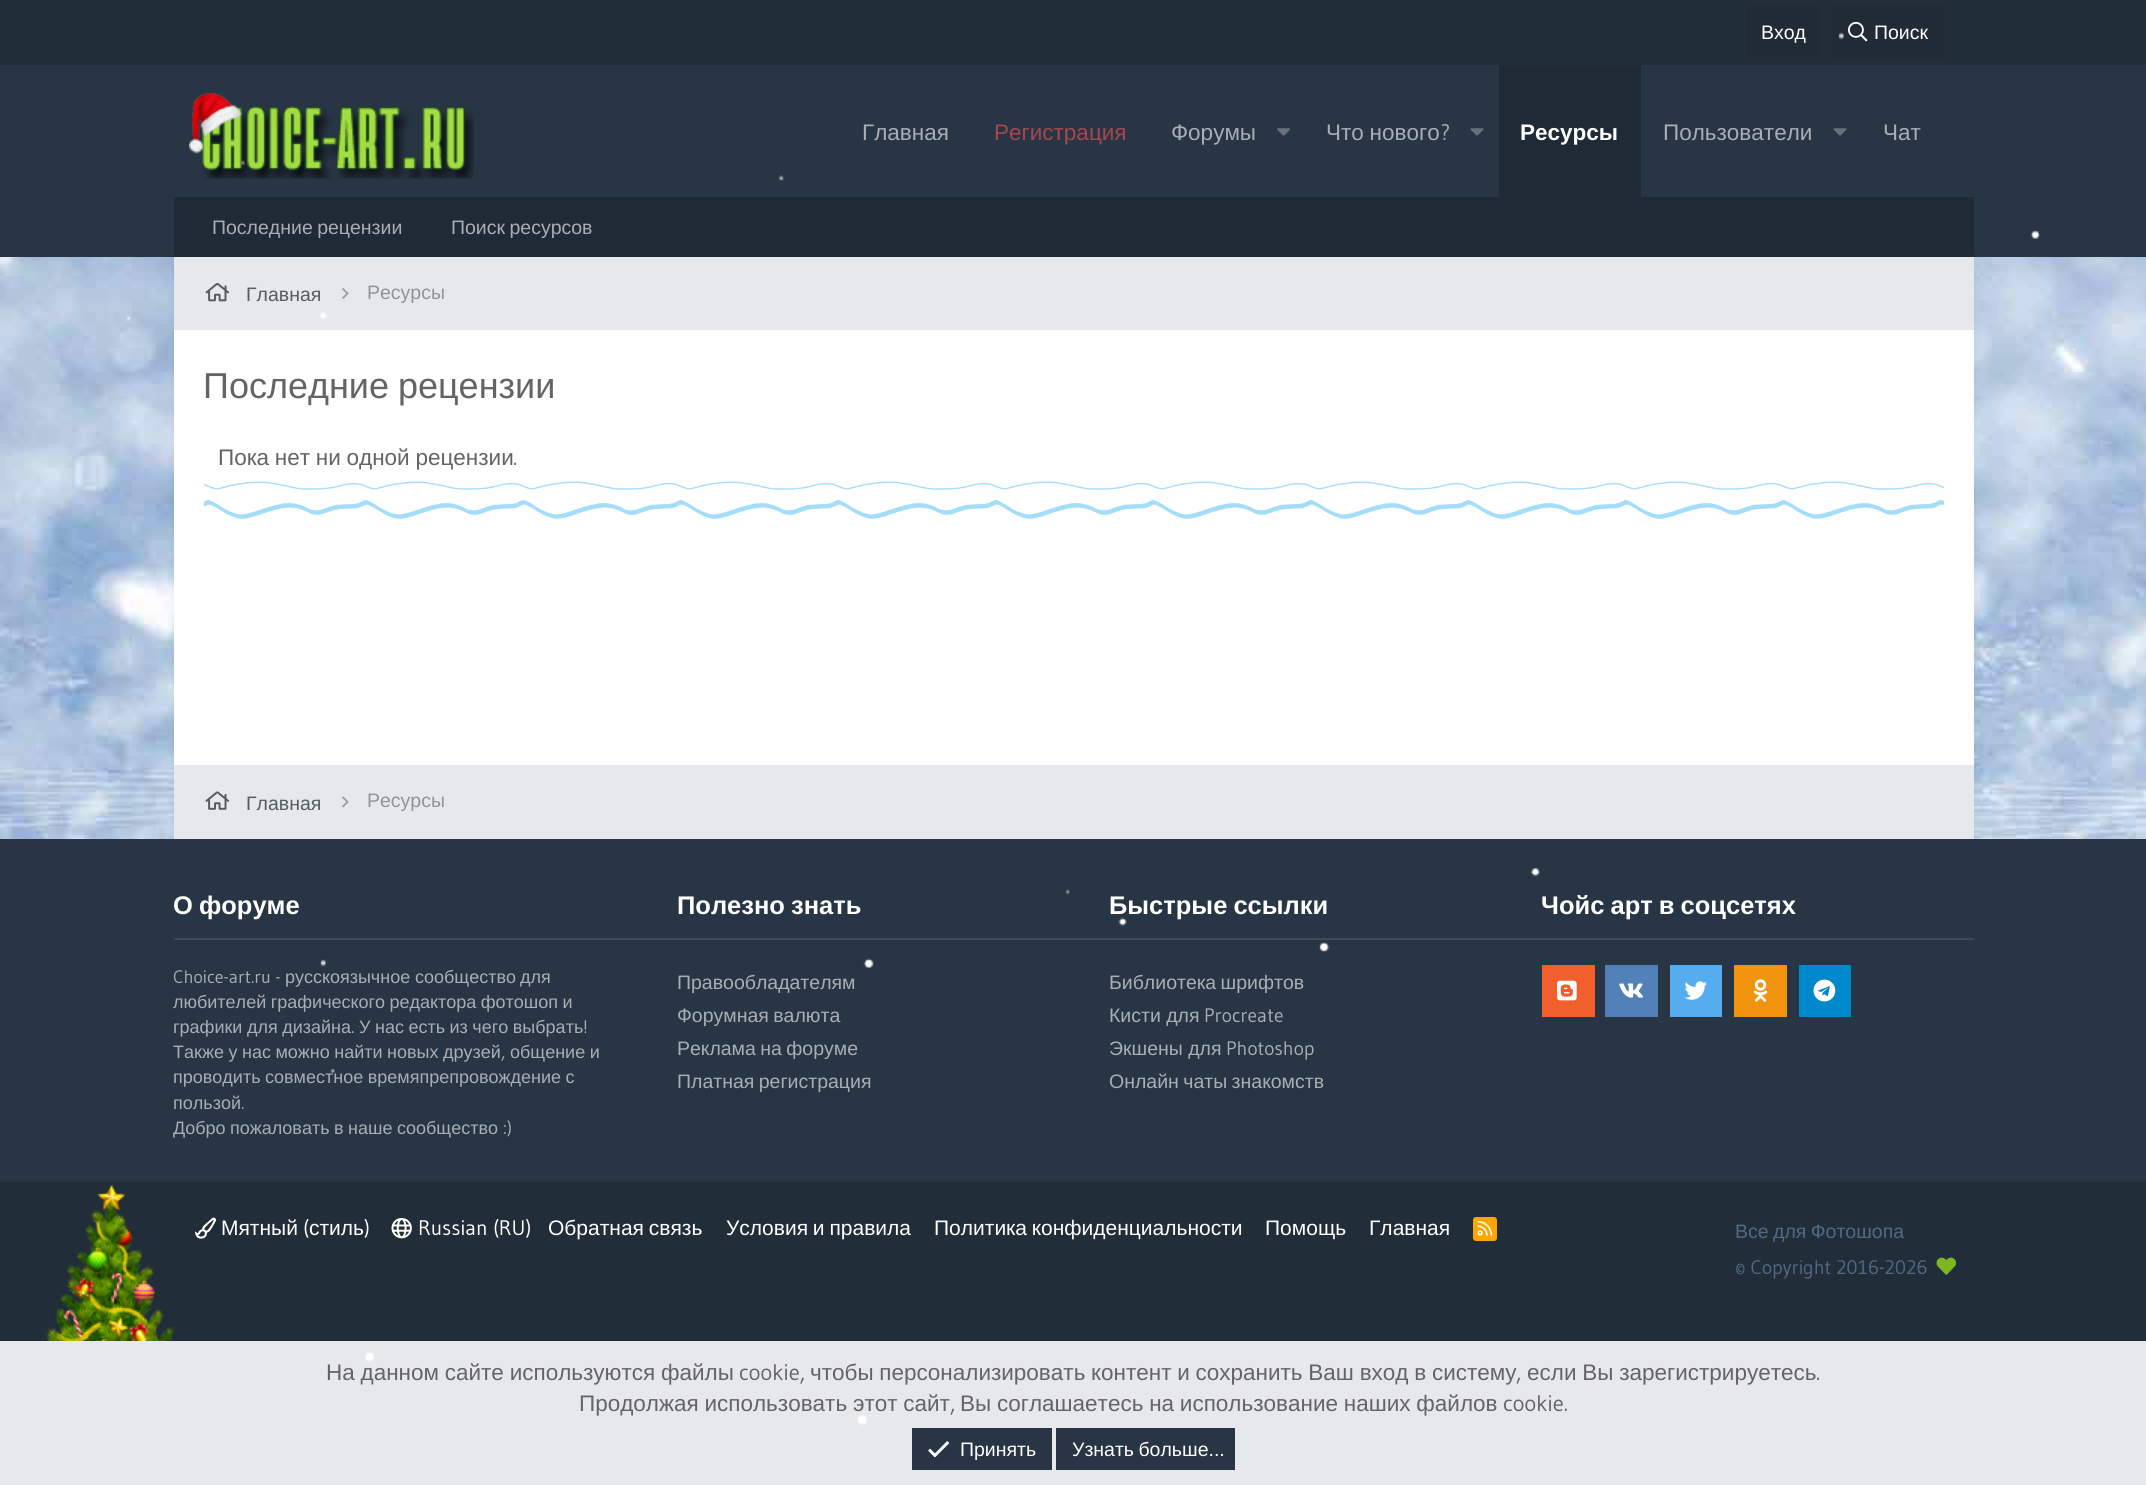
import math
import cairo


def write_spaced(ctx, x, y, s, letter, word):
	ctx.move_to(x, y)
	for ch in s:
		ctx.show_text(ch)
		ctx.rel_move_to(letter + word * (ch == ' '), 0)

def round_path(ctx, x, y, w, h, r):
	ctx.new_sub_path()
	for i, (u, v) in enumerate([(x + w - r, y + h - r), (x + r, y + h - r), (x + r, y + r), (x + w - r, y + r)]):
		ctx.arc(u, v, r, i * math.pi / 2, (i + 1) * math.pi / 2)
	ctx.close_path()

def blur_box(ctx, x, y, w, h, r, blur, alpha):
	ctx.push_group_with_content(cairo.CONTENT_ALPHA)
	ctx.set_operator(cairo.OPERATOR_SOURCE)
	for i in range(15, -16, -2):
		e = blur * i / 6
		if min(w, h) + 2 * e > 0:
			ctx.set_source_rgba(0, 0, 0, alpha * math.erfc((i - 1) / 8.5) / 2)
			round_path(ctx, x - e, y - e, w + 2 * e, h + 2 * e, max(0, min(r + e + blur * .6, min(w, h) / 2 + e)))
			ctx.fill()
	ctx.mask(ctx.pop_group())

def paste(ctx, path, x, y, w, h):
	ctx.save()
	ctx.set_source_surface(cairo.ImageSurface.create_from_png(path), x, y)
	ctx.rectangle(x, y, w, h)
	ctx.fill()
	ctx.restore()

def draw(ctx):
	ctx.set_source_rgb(1, 1, 1)
	ctx.paint()
	paste(ctx, 'media/1.png', 0, 257, 2146, 582)
	ctx.set_source_rgb(0.133, 0.176, 0.227)
	ctx.rectangle(0, 0, 2146, 65)
	ctx.fill()
	ctx.set_source_rgb(0.129, 0.169, 0.212)
	ctx.rectangle(1746, 6, 75, 51)
	ctx.fill()
	ctx.select_font_face('Liberation Sans')
	ctx.set_font_size(19.5)
	ctx.set_source_rgb(1, 1, 1)
	ctx.move_to(1761, 39)
	ctx.show_text('Вход')
	ctx.set_source_rgb(0.129, 0.169, 0.212)
	ctx.rectangle(1832, 6, 112, 53)
	ctx.fill()
	paste(ctx, 'media/2.png', 1848, 21, 20, 21)
	ctx.set_source_rgb(1, 1, 1)
	ctx.move_to(1874, 39)
	ctx.show_text('Поиск')
	ctx.set_source_rgb(0.157, 0.208, 0.267)
	ctx.rectangle(0, 65, 2146, 192)
	ctx.fill()
	paste(ctx, 'media/3.png', 189, 92, 285, 87)
	ctx.set_font_size(22.5)
	ctx.set_source_rgb(0.663, 0.682, 0.706)
	ctx.move_to(862, 140)
	ctx.show_text('Главная')
	ctx.set_source_rgb(0.655, 0.278, 0.302)
	ctx.move_to(994, 140)
	ctx.show_text('Регистрация')
	ctx.set_source_rgb(0.663, 0.682, 0.706)
	ctx.move_to(1171, 140)
	ctx.show_text('Форумы')
	paste(ctx, 'media/4.png', 1277, 128, 13, 8)
	write_spaced(ctx, 1326, 140, 'Что нового', 0, -0.5)
	ctx.select_font_face('Gudea')
	ctx.move_to(1440, 140)
	ctx.show_text('?')
	paste(ctx, 'media/5.png', 1470, 128, 14, 8)
	ctx.set_source_rgb(0.125, 0.165, 0.212)
	ctx.rectangle(1499, 65, 142, 132)
	ctx.fill()
	ctx.select_font_face('Liberation Sans', cairo.FONT_SLANT_NORMAL, cairo.FONT_WEIGHT_BOLD)
	ctx.set_source_rgb(1, 1, 1)
	ctx.move_to(1520, 140)
	ctx.show_text('Ресурсы')
	ctx.select_font_face('Liberation Sans')
	ctx.set_source_rgb(0.663, 0.682, 0.706)
	ctx.move_to(1663, 140)
	ctx.show_text('Пользователи')
	paste(ctx, 'media/5.png', 1833, 128, 14, 8)
	ctx.move_to(1883, 140)
	ctx.show_text('Чат')
	ctx.set_source_rgb(0, 0, 0)
	blur_box(ctx, 174, 257, 1800, 582, 0, 4.5, 0.06)
	ctx.set_source_rgb(0.125, 0.165, 0.212)
	ctx.rectangle(174, 197, 1800, 60)
	ctx.fill()
	ctx.set_font_size(19.5)
	ctx.set_source_rgb(0.663, 0.682, 0.706)
	write_spaced(ctx, 212, 234, 'Последние рецензии', 0, -1)
	write_spaced(ctx, 451, 234, 'Поиск ресурсов', 0, -1)
	ctx.set_source_rgb(0.996, 0.996, 0.996)
	ctx.rectangle(174, 330, 1800, 435)
	ctx.fill()
	ctx.set_source_rgb(0.902, 0.91, 0.922)
	ctx.rectangle(174, 257, 1800, 73)
	ctx.fill()
	paste(ctx, 'media/6.png', 205, 283, 25, 19)
	ctx.set_source_rgb(0.333, 0.361, 0.392)
	ctx.move_to(246, 301)
	ctx.show_text('Главная')
	paste(ctx, 'media/7.png', 342, 288, 7, 11)
	ctx.set_source_rgb(0.561, 0.58, 0.604)
	ctx.move_to(367, 299)
	ctx.show_text('Ресурсы')
	ctx.set_font_size(36)
	ctx.set_source_rgb(0.392, 0.392, 0.392)
	write_spaced(ctx, 203, 398, 'Последние рецензии', 0, -1)
	ctx.set_font_size(22.5)
	write_spaced(ctx, 218, 465, 'Пока нет ни одной рецензии', 0, -0.5)
	ctx.select_font_face('Gudea')
	ctx.move_to(513, 465)
	ctx.show_text('.')
	paste(ctx, 'media/8.png', 204, 481, 1740, 38)
	ctx.set_source_rgb(0.902, 0.91, 0.922)
	ctx.rectangle(174, 765, 1800, 74)
	ctx.fill()
	paste(ctx, 'media/9.png', 205, 791, 25, 19)
	ctx.select_font_face('Liberation Sans')
	ctx.set_font_size(19.5)
	ctx.set_source_rgb(0.333, 0.361, 0.392)
	ctx.move_to(246, 810)
	ctx.show_text('Главная')
	paste(ctx, 'media/10.png', 342, 796, 7, 12)
	ctx.set_source_rgb(0.561, 0.58, 0.604)
	ctx.move_to(367, 807)
	ctx.show_text('Ресурсы')
	ctx.set_source_rgb(0.157, 0.208, 0.267)
	ctx.rectangle(0, 839, 2146, 343)
	ctx.fill()
	ctx.set_source_rgb(0.243, 0.286, 0.341)
	ctx.rectangle(174, 938, 1800, 2)
	ctx.fill()
	ctx.select_font_face('Liberation Sans', cairo.FONT_SLANT_NORMAL, cairo.FONT_WEIGHT_BOLD)
	ctx.set_font_size(25.5)
	ctx.set_source_rgb(1, 1, 1)
	write_spaced(ctx, 173, 914, 'О форуме', 0, -1)
	ctx.select_font_face('Gudea')
	ctx.set_font_size(18)
	ctx.set_source_rgb(0.663, 0.682, 0.706)
	ctx.move_to(173, 983)
	ctx.show_text('Choice-art.ru -')
	ctx.select_font_face('Liberation Sans')
	for x, y, s in [
		(285, 983, 'русскоязычное'),
		(415, 983, 'сообщество'),
		(520, 983, 'для'),
	]:
		ctx.move_to(x, y)
		ctx.show_text(s)
	write_spaced(ctx, 173, 1008, 'любителей графического редактора фотошоп и', 0, -0.5)
	write_spaced(ctx, 173, 1033, 'графики для дизайна', 0, -0.5)
	ctx.select_font_face('Gudea')
	ctx.move_to(351, 1033)
	ctx.show_text('.')
	ctx.select_font_face('Liberation Sans')
	write_spaced(ctx, 359, 1033, 'У нас есть из чего выбрать', 0, -0.5)
	ctx.select_font_face('Gudea')
	ctx.move_to(583, 1033)
	ctx.show_text('!')
	ctx.select_font_face('Liberation Sans')
	write_spaced(ctx, 173, 1058, 'Также у нас можно найти новых друзей', 0, -0.5)
	ctx.select_font_face('Gudea')
	ctx.move_to(501, 1058)
	ctx.show_text(',')
	ctx.select_font_face('Liberation Sans')
	write_spaced(ctx, 510, 1058, 'общение и', 0, -0.5)
	write_spaced(ctx, 173, 1083, 'проводить совместное времяпрепровождение с', 0, -0.5)
	ctx.move_to(173, 1109)
	ctx.show_text('пользой')
	ctx.select_font_face('Gudea')
	ctx.move_to(241, 1109)
	ctx.show_text('.')
	ctx.select_font_face('Liberation Sans')
	write_spaced(ctx, 173, 1134, 'Добро пожаловать в наше сообщество', 0, -0.5)
	ctx.select_font_face('Gudea')
	ctx.move_to(503, 1134)
	ctx.show_text(':)')
	ctx.select_font_face('Liberation Sans', cairo.FONT_SLANT_NORMAL, cairo.FONT_WEIGHT_BOLD)
	ctx.set_font_size(25.5)
	ctx.set_source_rgb(1, 1, 1)
	write_spaced(ctx, 677, 914, 'Полезно знать', 0, -1)
	ctx.select_font_face('Liberation Sans')
	ctx.set_font_size(19.5)
	ctx.set_source_rgb(0.663, 0.682, 0.706)
	ctx.move_to(677, 989)
	ctx.show_text('Правообладателям')
	for x, y, s in [
		(677, 1022, 'Форумная валюта'),
		(677, 1055, 'Реклама на форуме'),
		(677, 1088, 'Платная регистрация'),
	]:
		write_spaced(ctx, x, y, s, 0, -1)
	ctx.select_font_face('Liberation Sans', cairo.FONT_SLANT_NORMAL, cairo.FONT_WEIGHT_BOLD)
	ctx.set_font_size(25.5)
	ctx.set_source_rgb(1, 1, 1)
	write_spaced(ctx, 1109, 914, 'Быстрые ссылки', 0, -1)
	ctx.select_font_face('Liberation Sans')
	ctx.set_font_size(19.5)
	ctx.set_source_rgb(0.663, 0.682, 0.706)
	write_spaced(ctx, 1109, 989, 'Библиотека шрифтов', 0, -1)
	ctx.move_to(1109, 1022)
	ctx.show_text('Кисти для')
	ctx.select_font_face('Gudea')
	ctx.move_to(1204, 1022)
	ctx.show_text('Procreate')
	ctx.select_font_face('Liberation Sans')
	ctx.move_to(1109, 1055)
	ctx.show_text('Экшены для')
	ctx.select_font_face('Gudea')
	ctx.move_to(1226, 1055)
	ctx.show_text('Photoshop')
	ctx.select_font_face('Liberation Sans')
	write_spaced(ctx, 1109, 1088, 'Онлайн чаты знакомств', 0, -1)
	ctx.select_font_face('Liberation Sans', cairo.FONT_SLANT_NORMAL, cairo.FONT_WEIGHT_BOLD)
	ctx.set_font_size(25.5)
	ctx.set_source_rgb(1, 1, 1)
	write_spaced(ctx, 1541, 914, 'Чойс арт в соцсетях', 0, -1)
	ctx.set_source_rgb(0.945, 0.373, 0.173)
	ctx.rectangle(1542, 965, 53, 52)
	ctx.fill()
	paste(ctx, 'media/11.png', 1557, 980, 20, 21)
	ctx.set_source_rgb(0.318, 0.506, 0.722)
	ctx.rectangle(1605, 965, 53, 52)
	ctx.fill()
	paste(ctx, 'media/12.png', 1619, 983, 24, 15)
	ctx.set_source_rgb(0.333, 0.675, 0.933)
	ctx.rectangle(1670, 965, 52, 52)
	ctx.fill()
	paste(ctx, 'media/13.png', 1684, 981, 23, 19)
	ctx.set_source_rgb(0.949, 0.576, 0.051)
	ctx.rectangle(1734, 965, 53, 52)
	ctx.fill()
	paste(ctx, 'media/14.png', 1753, 979, 15, 23)
	ctx.set_source_rgb(0, 0.533, 0.8)
	ctx.rectangle(1799, 965, 52, 52)
	ctx.fill()
	paste(ctx, 'media/15.png', 1813, 979, 23, 23)
	ctx.set_source_rgb(0.133, 0.176, 0.227)
	ctx.rectangle(0, 1182, 2146, 159)
	ctx.fill()
	paste(ctx, 'media/16.png', 195, 1217, 21, 22)
	ctx.select_font_face('Liberation Sans')
	ctx.set_font_size(21)
	ctx.set_source_rgb(1, 1, 1)
	ctx.move_to(221, 1235)
	ctx.show_text('Мятный')
	ctx.select_font_face('Gudea')
	ctx.move_to(303, 1235)
	ctx.show_text('(')
	ctx.select_font_face('Liberation Sans')
	ctx.move_to(309, 1235)
	ctx.show_text('стиль')
	ctx.select_font_face('Gudea')
	ctx.move_to(364, 1235)
	ctx.show_text(')')
	paste(ctx, 'media/17.png', 391, 1218, 21, 21)
	ctx.move_to(418, 1235)
	ctx.show_text('Russian (RU)')
	ctx.select_font_face('Liberation Sans')
	for x, y, s in [
		(548, 1235, 'Обратная связь'),
		(726, 1235, 'Условия и правила'),
		(934, 1235, 'Политика конфиденциальности'),
	]:
		write_spaced(ctx, x, y, s, 0, -1)
	ctx.move_to(1265, 1235)
	ctx.show_text('Помощь')
	ctx.move_to(1369, 1235)
	ctx.show_text('Главная')
	ctx.set_source_rgb(1, 0.647, 0)
	round_path(ctx, 1473, 1217, 24, 24, 3)
	ctx.fill()
	paste(ctx, 'media/18.png', 1477, 1220, 16, 16)
	ctx.set_font_size(19.5)
	ctx.set_source_rgb(0.318, 0.412, 0.518)
	write_spaced(ctx, 1735, 1238, 'Все для Фотошопа', 0, -1)
	ctx.select_font_face('Gudea')
	ctx.move_to(1735, 1274)
	ctx.show_text('© Copyright 2016-2026')
	paste(ctx, 'media/19.png', 1936, 1257, 20, 18)
	paste(ctx, 'media/20.png', 43, 1185, 133, 156)
	ctx.set_source_rgb(0.902, 0.91, 0.922)
	ctx.rectangle(0, 1341, 2146, 144)
	ctx.fill()
	ctx.select_font_face('Liberation Sans')
	ctx.set_font_size(22.5)
	ctx.set_source_rgb(0.392, 0.392, 0.392)
	write_spaced(ctx, 326, 1380, 'На данном сайте используются файлы', 0, -0.5)
	ctx.select_font_face('Gudea')
	ctx.move_to(739, 1380)
	ctx.show_text('cookie,')
	ctx.select_font_face('Liberation Sans')
	write_spaced(ctx, 810, 1380, 'чтобы персонализировать контент и сохранить Ваш вход в систему', 0, -0.5)
	ctx.select_font_face('Gudea')
	ctx.move_to(1516, 1380)
	ctx.show_text(',')
	ctx.select_font_face('Liberation Sans')
	write_spaced(ctx, 1527, 1380, 'если Вы зарегистрируетесь', 0, -0.5)
	ctx.select_font_face('Gudea')
	ctx.move_to(1816, 1380)
	ctx.show_text('.')
	ctx.select_font_face('Liberation Sans')
	write_spaced(ctx, 579, 1411, 'Продолжая использовать этот сайт', 0, -0.5)
	ctx.select_font_face('Gudea')
	ctx.move_to(950, 1411)
	ctx.show_text(',')
	ctx.select_font_face('Liberation Sans')
	write_spaced(ctx, 960, 1411, 'Вы соглашаетесь на использование наших файлов', 0, -0.5)
	ctx.select_font_face('Gudea')
	ctx.move_to(1503, 1411)
	ctx.show_text('cookie.')
	paste(ctx, 'media/21.png', 126, 32, 1915, 1393)
	ctx.set_source_rgb(0.157, 0.208, 0.267)
	ctx.rectangle(912, 1428, 140, 42)
	ctx.fill()
	paste(ctx, 'media/22.png', 928, 1441, 22, 17)
	ctx.select_font_face('Liberation Sans')
	ctx.set_font_size(19.5)
	ctx.set_source_rgb(1, 1, 1)
	ctx.move_to(960, 1456)
	ctx.show_text('Принять')
	ctx.set_source_rgb(0.157, 0.208, 0.267)
	ctx.rectangle(1056, 1428, 179, 42)
	ctx.fill()
	ctx.set_source_rgb(1, 1, 1)
	write_spaced(ctx, 1072, 1456, 'Узнать больше...', 0, -1)


surface = cairo.ImageSurface(cairo.FORMAT_RGB24, 2146, 1485)
ctx = cairo.Context(surface)
options = cairo.FontOptions()
options.set_hint_metrics(cairo.HINT_METRICS_OFF)
options.set_hint_style(cairo.HINT_STYLE_NONE)
ctx.set_font_options(options)
ctx.set_miter_limit(4)
draw(ctx)
surface.write_to_png('image.png')
